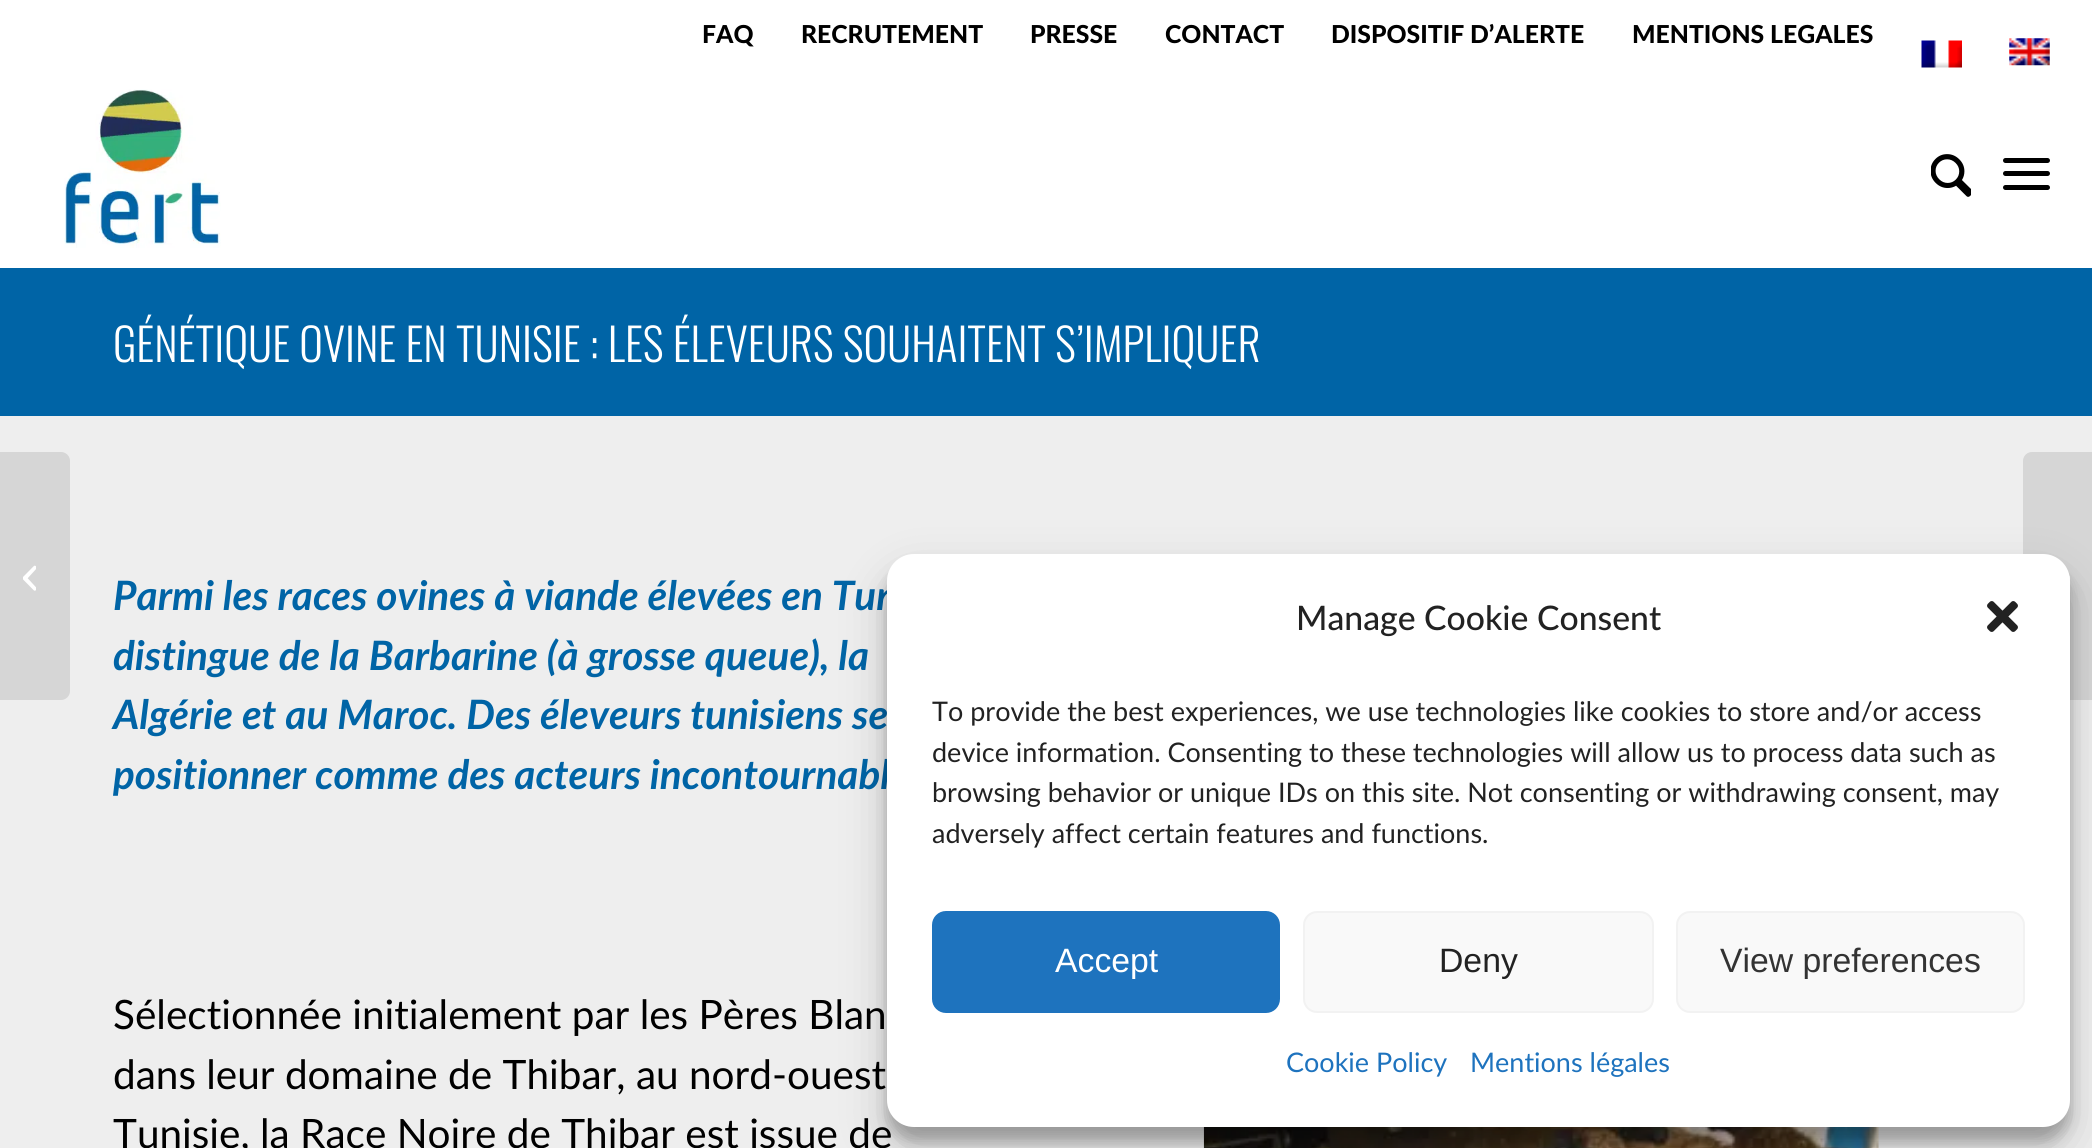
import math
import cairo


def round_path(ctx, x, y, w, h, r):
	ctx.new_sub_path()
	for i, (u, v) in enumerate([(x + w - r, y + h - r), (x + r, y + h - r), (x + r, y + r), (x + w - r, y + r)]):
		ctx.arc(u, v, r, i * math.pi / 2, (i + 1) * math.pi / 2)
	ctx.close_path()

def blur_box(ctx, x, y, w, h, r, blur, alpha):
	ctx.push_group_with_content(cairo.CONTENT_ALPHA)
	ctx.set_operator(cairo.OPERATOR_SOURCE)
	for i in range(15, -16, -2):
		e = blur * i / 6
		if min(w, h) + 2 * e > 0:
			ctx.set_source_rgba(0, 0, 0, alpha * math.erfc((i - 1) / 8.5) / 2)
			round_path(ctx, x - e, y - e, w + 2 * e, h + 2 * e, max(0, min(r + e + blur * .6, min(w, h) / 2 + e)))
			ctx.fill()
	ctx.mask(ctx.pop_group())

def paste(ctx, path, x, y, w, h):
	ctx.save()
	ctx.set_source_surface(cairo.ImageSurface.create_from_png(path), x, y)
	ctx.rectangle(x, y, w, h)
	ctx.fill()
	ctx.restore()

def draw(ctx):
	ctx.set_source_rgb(0, 0.392, 0.651)
	ctx.paint()
	ctx.set_source_rgb(1, 1, 1)
	ctx.rectangle(0, 0, 2092, 268)
	ctx.fill()
	ctx.select_font_face('Lato Black')
	ctx.set_font_size(24.75)
	ctx.set_source_rgb(0, 0, 0)
	for x, y, s in [
		(702, 43, 'FAQ'),
		(801, 43, 'RECRUTEMENT'),
		(1030, 43, 'PRESSE'),
		(1165, 43, 'CONTACT'),
		(1331, 43, 'DISPOSITIF D’ALERTE'),
		(1632, 43, 'MENTIONS LEGALES'),
	]:
		ctx.move_to(x, y)
		ctx.show_text(s)
	paste(ctx, 'media/1.png', 1921, 40, 41, 28)
	paste(ctx, 'media/2.png', 2009, 38, 41, 28)
	paste(ctx, 'media/3.png', 64, 89, 157, 159)
	paste(ctx, 'media/4.png', 1931, 154, 40, 43)
	round_path(ctx, 2003, 171, 47, 5, 2.5)
	ctx.fill()
	round_path(ctx, 2003, 158, 47, 5, 2.5)
	ctx.fill()
	round_path(ctx, 2003, 185, 47, 5, 2.5)
	ctx.fill()
	ctx.set_source_rgb(0.933, 0.933, 0.933)
	ctx.rectangle(0, 416, 2092, 732)
	ctx.fill()
	ctx.set_source_rgb(0.839, 0.839, 0.839)
	ctx.new_path()
	ctx.move_to(0, 452)
	ctx.line_to(61, 452)
	ctx.curve_to(66, 452, 70, 456, 70, 461)
	ctx.line_to(70, 691)
	ctx.curve_to(70, 696, 66, 700, 61, 700)
	ctx.line_to(0, 700)
	ctx.close_path()
	ctx.fill()
	paste(ctx, 'media/5.png', 23, 565, 13, 26)
	ctx.select_font_face('Oswald Light')
	ctx.set_font_size(45)
	ctx.set_source_rgb(1, 1, 1)
	ctx.move_to(113, 362)
	ctx.show_text('GÉNÉTIQUE OVINE EN TUNISIE : LES ÉLEVEURS SOUHAITENT S’IMPLIQUER')
	ctx.select_font_face('Lato', cairo.FONT_SLANT_ITALIC, cairo.FONT_WEIGHT_BOLD)
	ctx.set_font_size(40.5)
	ctx.set_source_rgb(0, 0.392, 0.651)
	for x, y, s in [
		(113, 610, 'Parmi les races ovines à viande élevées en Tun'),
		(113, 670, 'distingue de la Barbarine (à grosse queue), la'),
		(113, 729, 'Algérie et au Maroc. Des éleveurs tunisiens se'),
		(113, 789, 'positionner comme des acteurs incontournabl'),
	]:
		ctx.move_to(x, y)
		ctx.show_text(s)
	ctx.select_font_face('Lato')
	ctx.set_source_rgb(0, 0, 0)
	for x, y, s in [
		(113, 1029, 'Sélectionnée initialement par les Pères Blan'),
		(113, 1089, 'dans leur domaine de Thibar, au nord-ouest'),
		(113, 1148, 'Tunisie, la Race Noire de Thibar est issue de'),
	]:
		ctx.move_to(x, y)
		ctx.show_text(s)
	paste(ctx, 'media/6.png', 1203, 1127, 676, 21)
	ctx.set_source_rgb(0.839, 0.839, 0.839)
	ctx.new_path()
	ctx.move_to(2032, 452)
	ctx.line_to(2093, 452)
	ctx.line_to(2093, 700)
	ctx.line_to(2032, 700)
	ctx.curve_to(2027, 700, 2023, 696, 2023, 691)
	ctx.line_to(2023, 461)
	ctx.curve_to(2023, 456, 2027, 452, 2032, 452)
	ctx.close_path()
	ctx.fill()
	paste(ctx, 'media/7.png', 2069, 575, 1, 6)
	ctx.set_source_rgb(0, 0, 0)
	blur_box(ctx, 887, 567, 1183, 574, 27, 7, 0.23)
	blur_box(ctx, 887, 576, 1183, 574, 27, 22.5, 0.19)
	ctx.set_source_rgb(1, 1, 1)
	round_path(ctx, 887, 554, 1183, 573, 27)
	ctx.fill()
	ctx.select_font_face('Lato Medium')
	ctx.set_font_size(33.75)
	ctx.set_source_rgb(0.133, 0.133, 0.133)
	ctx.move_to(1296, 630)
	ctx.show_text('Manage Cookie Consent')
	paste(ctx, 'media/8.png', 1987, 601, 31, 31)
	ctx.select_font_face('Lato')
	ctx.set_font_size(27)
	for x, y, s in [
		(932, 721, 'To provide the best experiences, we use technologies like cookies to store and/or access'),
		(932, 762, 'device information. Consenting to these technologies will allow us to process data such as'),
		(932, 802, 'browsing behavior or unique IDs on this site. Not consenting or withdrawing consent, may'),
		(932, 843, 'adversely affect certain features and functions.'),
	]:
		ctx.move_to(x, y)
		ctx.show_text(s)
	ctx.set_source_rgb(0.118, 0.451, 0.745)
	round_path(ctx, 933, 912, 346, 100, 13)
	ctx.fill_preserve()
	ctx.stroke()
	ctx.select_font_face('Liberation Sans')
	ctx.set_font_size(33.75)
	ctx.set_source_rgb(1, 1, 1)
	ctx.move_to(1055, 972)
	ctx.show_text('Accept')
	ctx.set_source_rgb(0.976, 0.976, 0.976)
	round_path(ctx, 1304, 912, 349, 100, 13)
	ctx.fill_preserve()
	ctx.set_source_rgb(0.949, 0.949, 0.949)
	ctx.stroke()
	ctx.set_source_rgb(0.133, 0.133, 0.133)
	ctx.move_to(1439, 972)
	ctx.show_text('Deny')
	ctx.set_source_rgb(0.976, 0.976, 0.976)
	round_path(ctx, 1677, 912, 347, 100, 13)
	ctx.fill_preserve()
	ctx.set_source_rgb(0.949, 0.949, 0.949)
	ctx.stroke()
	ctx.set_source_rgb(0.2, 0.2, 0.2)
	ctx.move_to(1720, 972)
	ctx.show_text('View preferences')
	ctx.select_font_face('Lato')
	ctx.set_font_size(27)
	ctx.set_source_rgb(0.118, 0.451, 0.745)
	ctx.move_to(1286, 1072)
	ctx.show_text('Cookie Policy')
	ctx.move_to(1470, 1072)
	ctx.show_text('Mentions légales')


surface = cairo.ImageSurface(cairo.FORMAT_RGB24, 2092, 1148)
ctx = cairo.Context(surface)
options = cairo.FontOptions()
options.set_hint_metrics(cairo.HINT_METRICS_OFF)
options.set_hint_style(cairo.HINT_STYLE_NONE)
ctx.set_font_options(options)
ctx.set_miter_limit(4)
draw(ctx)
surface.write_to_png('image.png')
